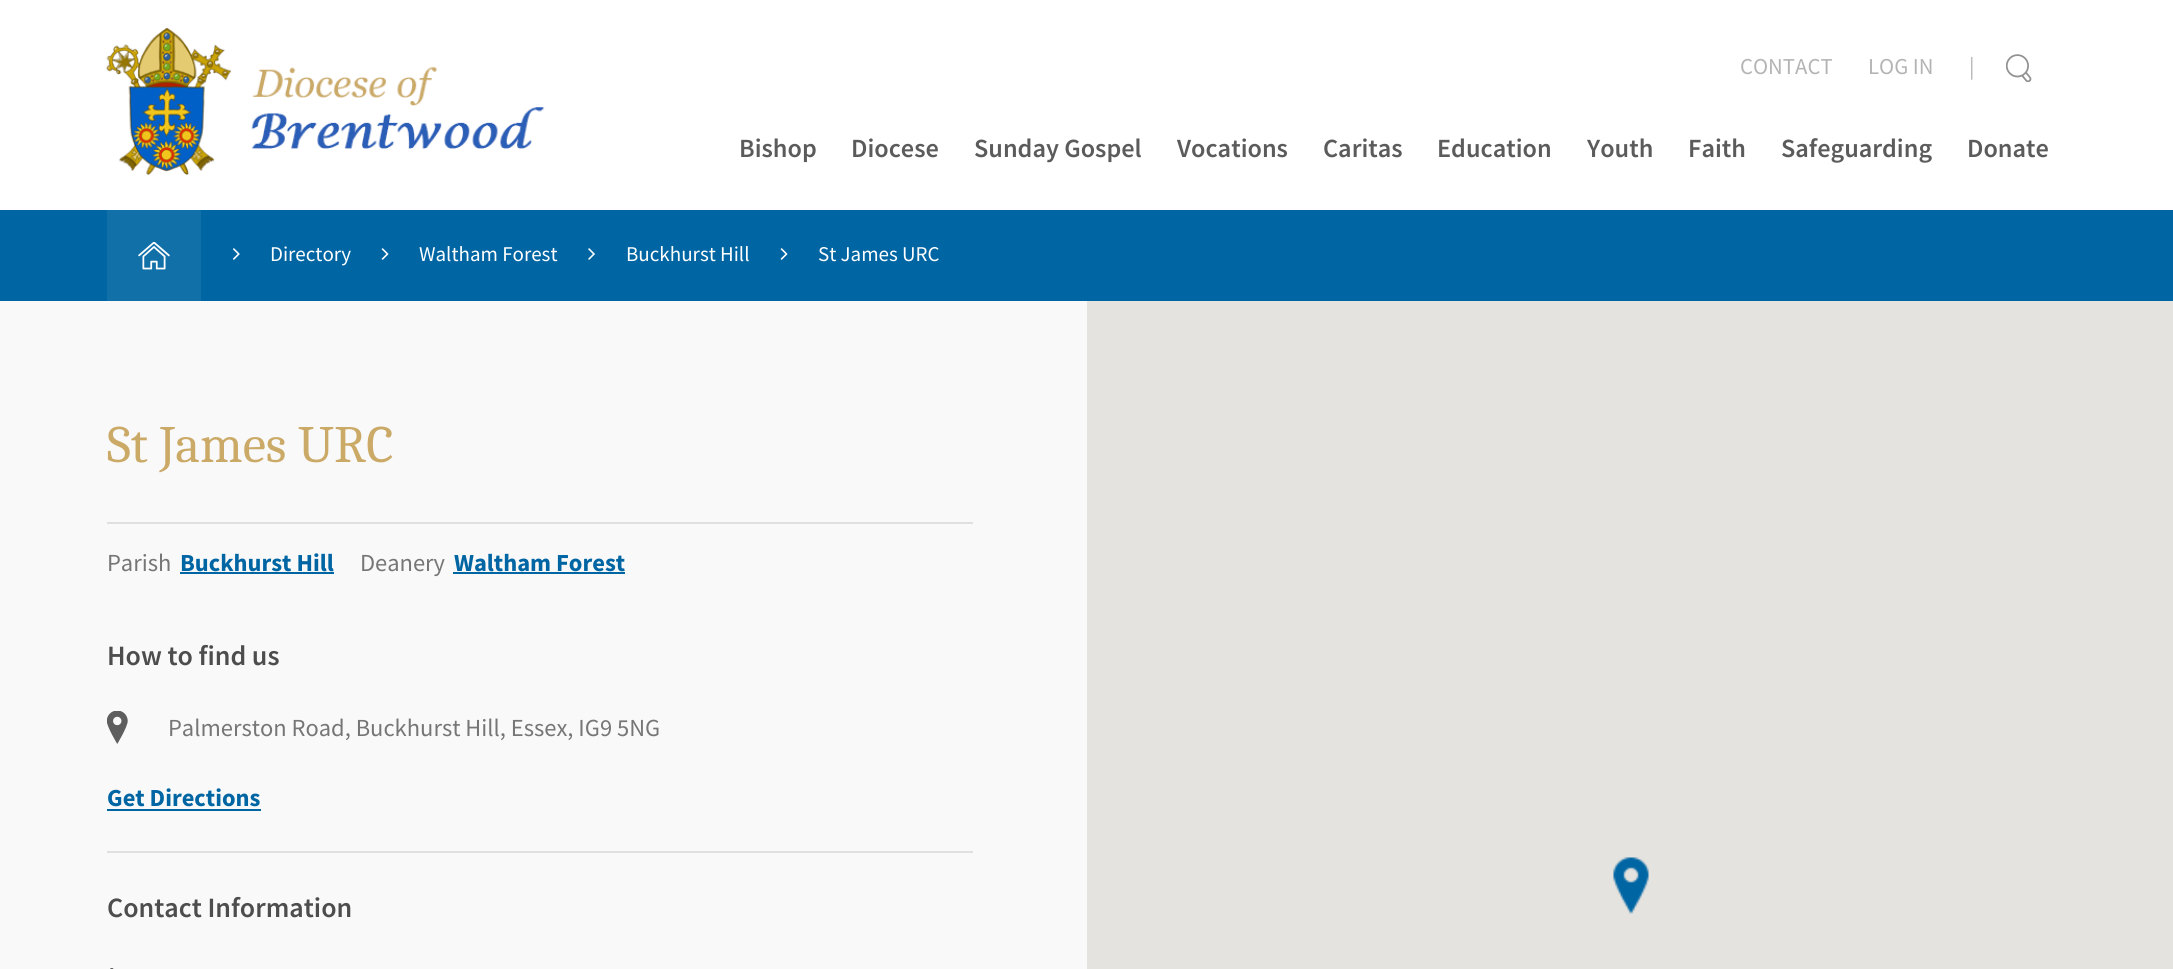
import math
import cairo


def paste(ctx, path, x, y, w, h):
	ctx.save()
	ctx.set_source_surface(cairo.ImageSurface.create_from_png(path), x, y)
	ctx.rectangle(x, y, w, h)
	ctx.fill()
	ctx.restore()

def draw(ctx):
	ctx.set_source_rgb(1, 1, 1)
	ctx.paint()
	paste(ctx, 'media/1.png', 106, 28, 439, 147)
	ctx.select_font_face('Source Sans Pro')
	ctx.set_font_size(22.75)
	ctx.set_source_rgb(0.706, 0.706, 0.706)
	for x, y, s in [
		(1740, 74, 'CONTACT'),
		(1868, 74, 'LOG IN'),
		(1969, 74, '|'),
	]:
		ctx.move_to(x, y)
		ctx.show_text(s)
	paste(ctx, 'media/2.png', 2006, 54, 26, 28)
	ctx.select_font_face('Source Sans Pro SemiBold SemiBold')
	ctx.set_font_size(26.25)
	ctx.set_source_rgb(0.357, 0.357, 0.357)
	for x, y, s in [
		(739, 157, 'Bishop'),
		(851, 157, 'Diocese'),
		(974, 157, 'Sunday Gospel'),
		(1177, 157, 'Vocations'),
		(1323, 157, 'Caritas'),
		(1437, 157, 'Education'),
		(1587, 157, 'Youth'),
		(1688, 157, 'Faith'),
		(1781, 157, 'Safeguarding'),
		(1967, 157, 'Donate'),
	]:
		ctx.move_to(x, y)
		ctx.show_text(s)
	ctx.set_source_rgb(0, 0.396, 0.639)
	ctx.rectangle(0, 210, 2173, 91)
	ctx.fill()
	ctx.set_source_rgb(0.071, 0.439, 0.663)
	ctx.rectangle(107, 210, 94, 91)
	ctx.fill()
	paste(ctx, 'media/3.png', 138, 242, 32, 28)
	paste(ctx, 'media/4.png', 233, 248, 7, 12)
	ctx.select_font_face('Source Sans Pro')
	ctx.set_font_size(21)
	ctx.set_source_rgb(1, 1, 1)
	ctx.move_to(270, 261)
	ctx.show_text('Directory')
	paste(ctx, 'media/5.png', 381, 248, 8, 12)
	ctx.move_to(419, 261)
	ctx.show_text('Waltham Forest')
	paste(ctx, 'media/6.png', 588, 248, 7, 12)
	ctx.move_to(626, 261)
	ctx.show_text('Buckhurst Hill')
	paste(ctx, 'media/5.png', 780, 248, 8, 12)
	ctx.move_to(818, 261)
	ctx.show_text('St James URC')
	ctx.set_source_rgb(0.976, 0.976, 0.976)
	ctx.rectangle(0, 301, 1087, 668)
	ctx.fill()
	ctx.select_font_face('Caladea')
	ctx.set_font_size(52.5)
	ctx.set_source_rgb(0.796, 0.667, 0.408)
	ctx.move_to(107, 462)
	ctx.show_text('St James URC')
	ctx.set_source_rgb(0.878, 0.878, 0.878)
	ctx.rectangle(107, 522, 866, 2)
	ctx.fill()
	ctx.select_font_face('Source Sans Pro')
	ctx.set_font_size(24.5)
	ctx.set_source_rgb(0.463, 0.463, 0.463)
	ctx.move_to(107, 571)
	ctx.show_text('Parish')
	ctx.select_font_face('Source Sans Pro', cairo.FONT_SLANT_NORMAL, cairo.FONT_WEIGHT_BOLD)
	ctx.set_source_rgb(0, 0.396, 0.639)
	ctx.move_to(180, 571)
	ctx.show_text('Buckhurst Hill')
	ctx.rectangle(180, 572, 154, 2)
	ctx.fill()
	ctx.select_font_face('Source Sans Pro')
	ctx.set_source_rgb(0.463, 0.463, 0.463)
	ctx.move_to(360, 571)
	ctx.show_text('Deanery')
	ctx.select_font_face('Source Sans Pro', cairo.FONT_SLANT_NORMAL, cairo.FONT_WEIGHT_BOLD)
	ctx.set_source_rgb(0, 0.396, 0.639)
	ctx.move_to(454, 571)
	ctx.show_text('Waltham Forest')
	ctx.rectangle(453, 572, 172, 2)
	ctx.fill()
	ctx.select_font_face('Source Sans Pro SemiBold SemiBold')
	ctx.set_font_size(28)
	ctx.set_source_rgb(0.302, 0.302, 0.302)
	ctx.move_to(107, 665)
	ctx.show_text('How to find us')
	paste(ctx, 'media/7.png', 107, 711, 21, 33)
	ctx.select_font_face('Source Sans Pro')
	ctx.set_font_size(24.5)
	ctx.set_source_rgb(0.463, 0.463, 0.463)
	ctx.move_to(168, 736)
	ctx.show_text('Palmerston Road, Buckhurst Hill, Essex, IG9 5NG')
	ctx.select_font_face('Source Sans Pro', cairo.FONT_SLANT_NORMAL, cairo.FONT_WEIGHT_BOLD)
	ctx.set_source_rgb(0, 0.396, 0.639)
	ctx.move_to(107, 806)
	ctx.show_text('Get Directions')
	ctx.rectangle(107, 809, 154, 2)
	ctx.fill()
	ctx.set_source_rgb(0.878, 0.878, 0.878)
	ctx.rectangle(107, 851, 866, 2)
	ctx.fill()
	ctx.select_font_face('Source Sans Pro SemiBold SemiBold')
	ctx.set_font_size(28)
	ctx.set_source_rgb(0.302, 0.302, 0.302)
	ctx.move_to(107, 917)
	ctx.show_text('Contact Information')
	paste(ctx, 'media/8.png', 110, 968, 4, 1)
	ctx.set_source_rgb(0.898, 0.89, 0.875)
	ctx.rectangle(1087, 301, 1086, 668)
	ctx.fill()
	paste(ctx, 'media/9.png', 1613, 857, 36, 57)


surface = cairo.ImageSurface(cairo.FORMAT_RGB24, 2173, 969)
ctx = cairo.Context(surface)
options = cairo.FontOptions()
options.set_hint_metrics(cairo.HINT_METRICS_OFF)
options.set_hint_style(cairo.HINT_STYLE_NONE)
ctx.set_font_options(options)
ctx.set_miter_limit(4)
draw(ctx)
surface.write_to_png('image.png')
